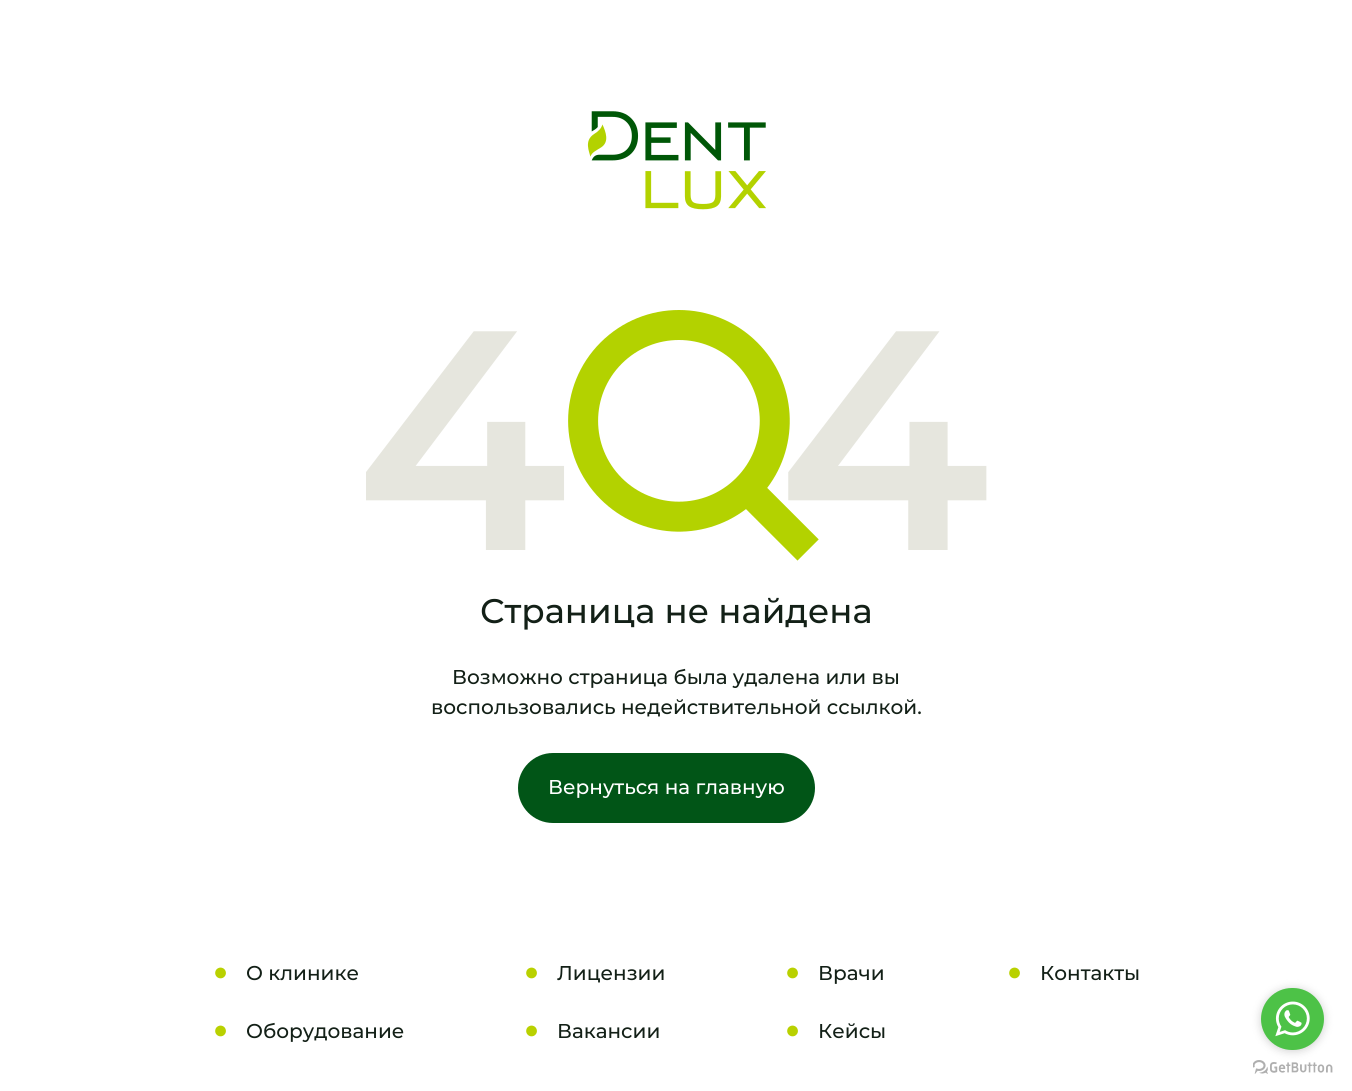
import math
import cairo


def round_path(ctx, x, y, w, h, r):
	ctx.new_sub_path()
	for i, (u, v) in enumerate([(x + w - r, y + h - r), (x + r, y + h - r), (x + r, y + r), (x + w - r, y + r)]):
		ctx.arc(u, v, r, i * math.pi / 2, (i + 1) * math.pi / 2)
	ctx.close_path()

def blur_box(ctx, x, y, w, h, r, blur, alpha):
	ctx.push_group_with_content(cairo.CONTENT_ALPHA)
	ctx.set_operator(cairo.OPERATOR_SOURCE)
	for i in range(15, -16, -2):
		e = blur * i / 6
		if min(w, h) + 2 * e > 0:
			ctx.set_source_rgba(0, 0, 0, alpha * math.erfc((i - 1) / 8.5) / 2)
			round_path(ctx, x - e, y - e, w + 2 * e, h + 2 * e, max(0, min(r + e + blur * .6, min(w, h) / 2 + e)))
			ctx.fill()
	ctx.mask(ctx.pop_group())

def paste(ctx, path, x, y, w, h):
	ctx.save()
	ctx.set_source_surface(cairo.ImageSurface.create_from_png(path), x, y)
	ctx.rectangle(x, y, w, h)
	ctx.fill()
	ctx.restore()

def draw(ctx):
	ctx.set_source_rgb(1, 1, 1)
	ctx.paint()
	paste(ctx, 'media/1.png', 587, 111, 179, 99)
	paste(ctx, 'media/2.png', 366, 310, 621, 251)
	ctx.select_font_face('Montserrat Medium')
	ctx.set_font_size(34.1)
	ctx.set_source_rgb(0.075, 0.125, 0.09)
	ctx.move_to(480, 623)
	ctx.show_text('Страница не найдена')
	ctx.set_font_size(20)
	ctx.move_to(452, 684)
	ctx.show_text('Возможно страница была удалена или вы')
	ctx.move_to(431, 714)
	ctx.show_text('воспользовались недействительной ссылкой.')
	ctx.set_source_rgb(0.004, 0.333, 0.09)
	round_path(ctx, 518, 753, 297, 70, 35)
	ctx.fill()
	ctx.set_source_rgb(1, 1, 1)
	ctx.move_to(548, 794)
	ctx.show_text('Вернуться на главную')
	ctx.select_font_face('Liberation Sans')
	ctx.set_font_size(25)
	ctx.set_source_rgb(0.725, 0.82, 0)
	ctx.move_to(213, 980)
	ctx.show_text('●')
	ctx.select_font_face('Montserrat Medium')
	ctx.set_font_size(20)
	ctx.set_source_rgb(0.075, 0.125, 0.09)
	ctx.move_to(246, 980)
	ctx.show_text('О клинике')
	ctx.select_font_face('Liberation Sans')
	ctx.set_font_size(25)
	ctx.set_source_rgb(0.725, 0.82, 0)
	ctx.move_to(213, 1038)
	ctx.show_text('●')
	ctx.select_font_face('Montserrat Medium')
	ctx.set_font_size(20)
	ctx.set_source_rgb(0.075, 0.125, 0.09)
	ctx.move_to(246, 1038)
	ctx.show_text('Оборудование')
	ctx.select_font_face('Liberation Sans')
	ctx.set_font_size(25)
	ctx.set_source_rgb(0.725, 0.82, 0)
	ctx.move_to(524, 980)
	ctx.show_text('●')
	ctx.select_font_face('Montserrat Medium')
	ctx.set_font_size(20)
	ctx.set_source_rgb(0.075, 0.125, 0.09)
	ctx.move_to(557, 980)
	ctx.show_text('Лицензии')
	ctx.select_font_face('Liberation Sans')
	ctx.set_font_size(25)
	ctx.set_source_rgb(0.725, 0.82, 0)
	ctx.move_to(524, 1038)
	ctx.show_text('●')
	ctx.select_font_face('Montserrat Medium')
	ctx.set_font_size(20)
	ctx.set_source_rgb(0.075, 0.125, 0.09)
	ctx.move_to(557, 1038)
	ctx.show_text('Вакансии')
	ctx.select_font_face('Liberation Sans')
	ctx.set_font_size(25)
	ctx.set_source_rgb(0.725, 0.82, 0)
	ctx.move_to(785, 980)
	ctx.show_text('●')
	ctx.select_font_face('Montserrat Medium')
	ctx.set_font_size(20)
	ctx.set_source_rgb(0.075, 0.125, 0.09)
	ctx.move_to(818, 980)
	ctx.show_text('Врачи')
	ctx.select_font_face('Liberation Sans')
	ctx.set_font_size(25)
	ctx.set_source_rgb(0.725, 0.82, 0)
	ctx.move_to(785, 1038)
	ctx.show_text('●')
	ctx.select_font_face('Montserrat Medium')
	ctx.set_font_size(20)
	ctx.set_source_rgb(0.075, 0.125, 0.09)
	ctx.move_to(818, 1038)
	ctx.show_text('Кейсы')
	ctx.select_font_face('Liberation Sans')
	ctx.set_font_size(25)
	ctx.set_source_rgb(0.725, 0.82, 0)
	ctx.move_to(1007, 980)
	ctx.show_text('●')
	ctx.select_font_face('Montserrat Medium')
	ctx.set_font_size(20)
	ctx.set_source_rgb(0.075, 0.125, 0.09)
	ctx.move_to(1040, 980)
	ctx.show_text('Контакты')
	paste(ctx, 'media/4.png', 1253, 1060, 80, 14)
	ctx.set_source_rgb(0.533, 0.533, 0.533)
	blur_box(ctx, 1261, 989, 63, 62, 31, 4.5, 0.4)
	ctx.set_source_rgb(0.302, 0.761, 0.278)
	round_path(ctx, 1261, 988, 63, 62, 31)
	ctx.fill()
	paste(ctx, 'media/3.png', 1275, 1001, 35, 36)


surface = cairo.ImageSurface(cairo.FORMAT_RGB24, 1352, 1091)
ctx = cairo.Context(surface)
options = cairo.FontOptions()
options.set_hint_metrics(cairo.HINT_METRICS_OFF)
options.set_hint_style(cairo.HINT_STYLE_NONE)
ctx.set_font_options(options)
ctx.set_miter_limit(4)
draw(ctx)
surface.write_to_png('image.png')
